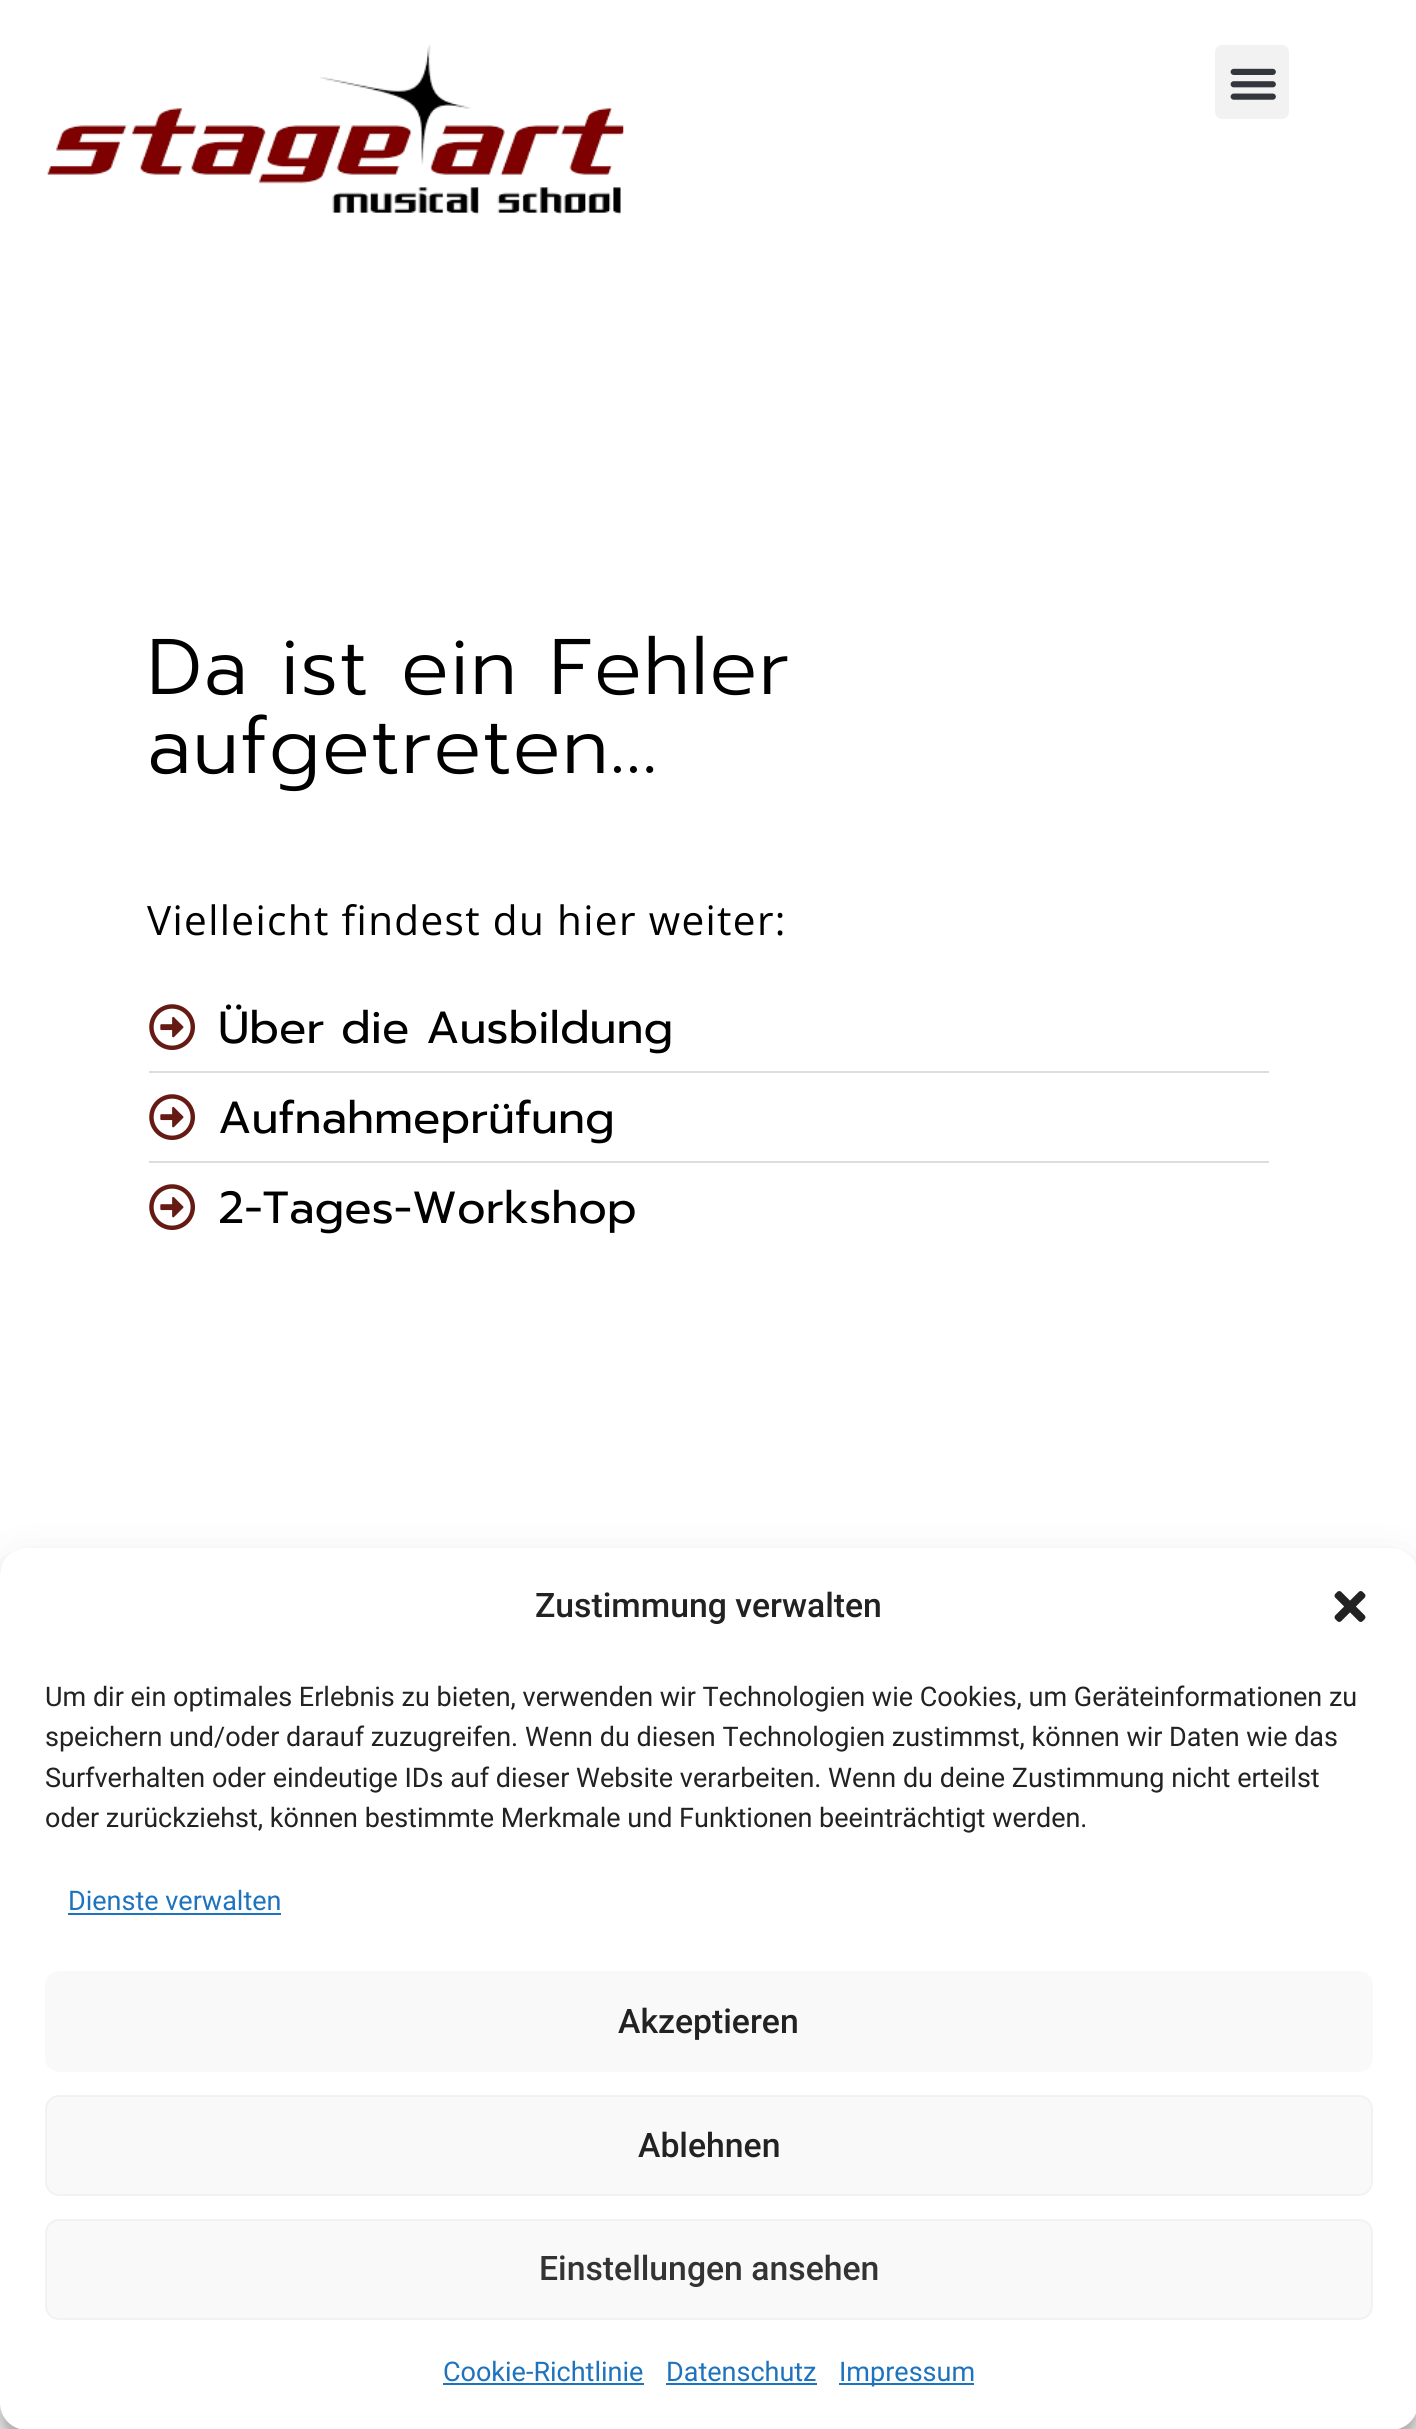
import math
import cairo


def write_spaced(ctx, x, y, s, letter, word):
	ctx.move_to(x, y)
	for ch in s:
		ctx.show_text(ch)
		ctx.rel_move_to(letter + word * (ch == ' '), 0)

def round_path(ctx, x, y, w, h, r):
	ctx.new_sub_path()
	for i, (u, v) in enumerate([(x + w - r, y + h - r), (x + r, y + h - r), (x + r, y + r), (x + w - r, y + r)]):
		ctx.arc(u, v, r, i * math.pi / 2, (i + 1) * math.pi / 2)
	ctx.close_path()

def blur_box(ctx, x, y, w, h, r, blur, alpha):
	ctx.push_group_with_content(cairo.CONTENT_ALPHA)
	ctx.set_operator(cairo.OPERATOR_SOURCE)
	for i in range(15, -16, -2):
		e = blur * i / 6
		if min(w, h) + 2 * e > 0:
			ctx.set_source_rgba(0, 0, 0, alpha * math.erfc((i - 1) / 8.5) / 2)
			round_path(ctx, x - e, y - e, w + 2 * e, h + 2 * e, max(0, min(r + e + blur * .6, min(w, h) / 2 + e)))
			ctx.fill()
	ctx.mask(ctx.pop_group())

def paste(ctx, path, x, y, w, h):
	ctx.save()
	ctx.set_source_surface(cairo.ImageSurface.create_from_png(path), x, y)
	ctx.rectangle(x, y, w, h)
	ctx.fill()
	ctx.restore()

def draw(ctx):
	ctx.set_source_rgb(1, 1, 1)
	ctx.paint()
	paste(ctx, 'media/1.png', 47, 45, 577, 170)
	ctx.set_source_rgb(0.949, 0.949, 0.949)
	round_path(ctx, 1215, 45, 74, 74, 7)
	ctx.fill()
	paste(ctx, 'media/2.png', 1230, 68, 46, 32)
	ctx.select_font_face('Prompt Light')
	ctx.set_font_size(78.75)
	ctx.set_source_rgb(0, 0, 0)
	write_spaced(ctx, 147, 694, 'Da ist ein Fehler', 1.35, 0)
	write_spaced(ctx, 147, 773, 'aufgetreten...', 1.35, 0)
	ctx.select_font_face('Open Sans')
	ctx.set_font_size(40.5)
	write_spaced(ctx, 147, 935, 'Vielleicht findest du hier weiter:', 1.35, 0)
	paste(ctx, 'media/3.png', 149, 1004, 46, 46)
	ctx.select_font_face('Prompt')
	ctx.set_font_size(45)
	ctx.move_to(218, 1043)
	ctx.show_text('Über die Ausbildung')
	ctx.set_source_rgb(0.867, 0.867, 0.867)
	ctx.rectangle(149, 1071, 1120, 2)
	ctx.fill()
	paste(ctx, 'media/3.png', 149, 1094, 46, 46)
	ctx.set_source_rgb(0, 0, 0)
	ctx.move_to(218, 1133)
	ctx.show_text('Aufnahmeprüfung')
	ctx.set_source_rgb(0.867, 0.867, 0.867)
	ctx.rectangle(149, 1161, 1120, 2)
	ctx.fill()
	paste(ctx, 'media/3.png', 149, 1184, 46, 46)
	ctx.set_source_rgb(0, 0, 0)
	ctx.move_to(218, 1223)
	ctx.show_text('2-Tages-Workshop')
	ctx.set_source_rgb(0, 0, 0)
	blur_box(ctx, 0, 1562, 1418, 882, 27, 7, 0.23)
	blur_box(ctx, 0, 1571, 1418, 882, 27, 22.5, 0.19)
	ctx.set_source_rgb(1, 1, 1)
	round_path(ctx, 0, 1548, 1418, 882, 27)
	ctx.fill()
	ctx.select_font_face('Roboto Medium')
	ctx.set_font_size(33.75)
	ctx.set_source_rgb(0.133, 0.133, 0.133)
	ctx.move_to(535, 1617)
	ctx.show_text('Zustimmung verwalten')
	paste(ctx, 'media/4.png', 1334, 1591, 32, 31)
	ctx.select_font_face('Roboto')
	ctx.set_font_size(27)
	for x, y, s in [
		(45, 1706, 'Um dir ein optimales Erlebnis zu bieten, verwenden wir Technologien wie Cookies, um Geräteinformationen zu'),
		(45, 1746, 'speichern und/oder darauf zuzugreifen. Wenn du diesen Technologien zustimmst, können wir Daten wie das'),
		(45, 1787, 'Surfverhalten oder eindeutige IDs auf dieser Website verarbeiten. Wenn du deine Zustimmung nicht erteilst'),
		(45, 1827, 'oder zurückziehst, können bestimmte Merkmale und Funktionen beeinträchtigt werden.'),
	]:
		ctx.move_to(x, y)
		ctx.show_text(s)
	ctx.set_source_rgb(0.118, 0.451, 0.745)
	ctx.move_to(68, 1910)
	ctx.show_text('Dienste verwalten')
	ctx.rectangle(68, 1913, 213, 2)
	ctx.fill()
	ctx.set_source_rgb(0.976, 0.976, 0.976)
	round_path(ctx, 45, 1971, 1328, 101, 14)
	ctx.fill()
	ctx.select_font_face('Roboto Medium')
	ctx.set_font_size(33.75)
	ctx.set_source_rgb(0.133, 0.133, 0.133)
	ctx.move_to(618, 2033)
	ctx.show_text('Akzeptieren')
	ctx.set_source_rgb(0.976, 0.976, 0.976)
	round_path(ctx, 46, 2096, 1326, 99, 13)
	ctx.fill_preserve()
	ctx.set_source_rgb(0.949, 0.949, 0.949)
	ctx.stroke()
	ctx.set_source_rgb(0.133, 0.133, 0.133)
	ctx.move_to(638, 2157)
	ctx.show_text('Ablehnen')
	ctx.set_source_rgb(0.976, 0.976, 0.976)
	round_path(ctx, 46, 2220, 1326, 99, 13)
	ctx.fill_preserve()
	ctx.set_source_rgb(0.949, 0.949, 0.949)
	ctx.stroke()
	ctx.set_source_rgb(0.2, 0.2, 0.2)
	ctx.move_to(539, 2280)
	ctx.show_text('Einstellungen ansehen')
	ctx.select_font_face('Roboto')
	ctx.set_font_size(27)
	ctx.set_source_rgb(0.118, 0.451, 0.745)
	ctx.move_to(443, 2381)
	ctx.show_text('Cookie-Richtlinie')
	ctx.rectangle(443, 2383, 201, 2)
	ctx.fill()
	ctx.move_to(666, 2381)
	ctx.show_text('Datenschutz')
	ctx.rectangle(666, 2383, 151, 2)
	ctx.fill()
	ctx.rectangle(839, 2383, 135, 2)
	ctx.fill()
	ctx.move_to(839, 2381)
	ctx.show_text('Impressum')


surface = cairo.ImageSurface(cairo.FORMAT_RGB24, 1416, 2429)
ctx = cairo.Context(surface)
options = cairo.FontOptions()
options.set_hint_metrics(cairo.HINT_METRICS_OFF)
options.set_hint_style(cairo.HINT_STYLE_NONE)
ctx.set_font_options(options)
ctx.set_miter_limit(4)
draw(ctx)
surface.write_to_png('image.png')
